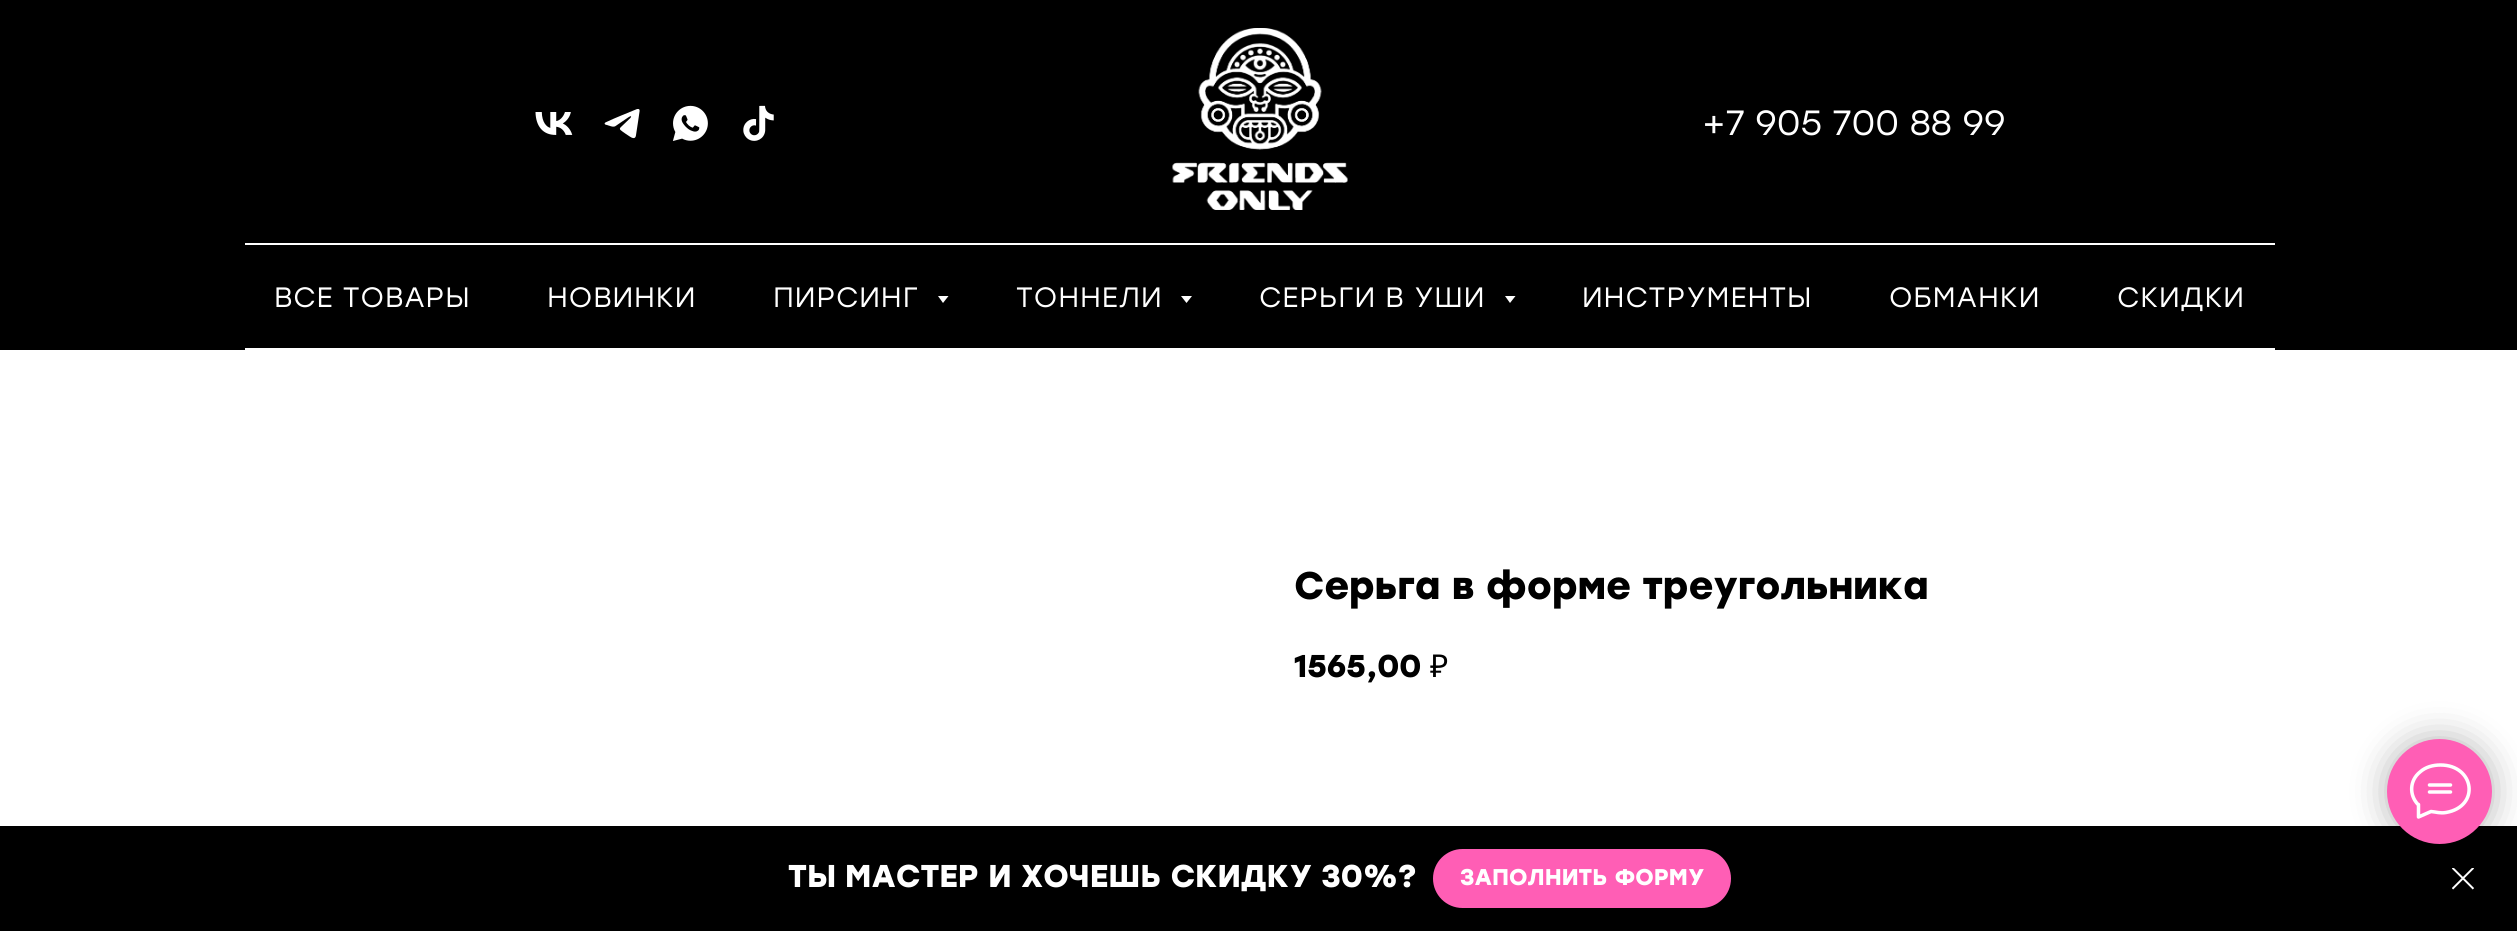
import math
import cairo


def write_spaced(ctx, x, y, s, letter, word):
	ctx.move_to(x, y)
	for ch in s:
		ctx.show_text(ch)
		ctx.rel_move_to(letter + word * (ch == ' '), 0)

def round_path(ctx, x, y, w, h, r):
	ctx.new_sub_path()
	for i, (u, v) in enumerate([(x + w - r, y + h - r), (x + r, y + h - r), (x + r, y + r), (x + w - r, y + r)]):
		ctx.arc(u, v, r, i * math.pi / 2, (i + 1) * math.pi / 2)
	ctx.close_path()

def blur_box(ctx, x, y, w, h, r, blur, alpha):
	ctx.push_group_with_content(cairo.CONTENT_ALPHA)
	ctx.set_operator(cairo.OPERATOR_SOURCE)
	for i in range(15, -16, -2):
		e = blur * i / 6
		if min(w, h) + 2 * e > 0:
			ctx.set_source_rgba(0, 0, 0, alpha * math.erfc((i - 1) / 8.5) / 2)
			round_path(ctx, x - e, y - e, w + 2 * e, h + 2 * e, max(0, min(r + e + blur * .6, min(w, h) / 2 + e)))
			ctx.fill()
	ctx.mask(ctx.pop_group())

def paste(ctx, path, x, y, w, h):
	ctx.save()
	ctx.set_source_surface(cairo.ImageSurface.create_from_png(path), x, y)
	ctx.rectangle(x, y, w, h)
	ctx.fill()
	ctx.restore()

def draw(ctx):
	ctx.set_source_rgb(1, 1, 1)
	ctx.paint()
	ctx.set_source_rgb(0, 0, 0)
	ctx.rectangle(0, 0, 2517, 350)
	ctx.fill()
	paste(ctx, 'media/1.png', 1172, 28, 176, 182)
	paste(ctx, 'media/2.png', 535, 112, 38, 23)
	paste(ctx, 'media/3.png', 604, 109, 36, 30)
	paste(ctx, 'media/4.png', 672, 105, 36, 36)
	paste(ctx, 'media/5.png', 743, 105, 31, 36)
	ctx.select_font_face('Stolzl')
	ctx.set_font_size(35)
	ctx.set_source_rgb(1, 1, 1)
	ctx.move_to(1702, 135)
	ctx.show_text('+7 905 700 88 99')
	ctx.rectangle(245, 243, 2030, 2)
	ctx.fill()
	ctx.set_font_size(28)
	for x, y, s in [
		(274, 307, 'ВСЕ ТОВАРЫ'),
		(547, 307, 'НОВИНКИ'),
		(773, 307, 'ПИРСИНГ'),
	]:
		write_spaced(ctx, x, y, s, 0.9, 0)
	ctx.new_path()
	ctx.move_to(938, 296)
	ctx.line_to(948.5, 296)
	ctx.line_to(943, 303)
	ctx.close_path()
	ctx.fill()
	write_spaced(ctx, 1016, 307, 'ТОННЕЛИ', 0.9, 0)
	ctx.new_path()
	ctx.move_to(1181, 296)
	ctx.line_to(1192, 296)
	ctx.line_to(1186.5, 303)
	ctx.close_path()
	ctx.fill()
	write_spaced(ctx, 1259, 307, 'СЕРЬГИ В УШИ', 0.9, 0)
	ctx.new_path()
	ctx.move_to(1505, 296)
	ctx.line_to(1515.5, 296)
	ctx.line_to(1510, 303)
	ctx.close_path()
	ctx.fill()
	for x, y, s in [
		(1582, 307, 'ИНСТРУМЕНТЫ'),
		(1889, 307, 'ОБМАНКИ'),
		(2117, 307, 'СКИДКИ'),
	]:
		write_spaced(ctx, x, y, s, 0.9, 0)
	ctx.rectangle(245, 348, 2030, 2)
	ctx.fill()
	ctx.select_font_face('Stolzl', cairo.FONT_SLANT_NORMAL, cairo.FONT_WEIGHT_BOLD)
	ctx.set_font_size(38.5)
	ctx.set_source_rgb(0, 0, 0)
	ctx.move_to(1294, 599)
	ctx.show_text('Серьга в форме треугольника')
	ctx.set_font_size(31.5)
	ctx.move_to(1294, 677)
	ctx.show_text('1565,00')
	ctx.select_font_face('Noto Sans')
	ctx.move_to(1430, 677)
	ctx.show_text('₽')
	ctx.rectangle(0, 826, 2517, 105)
	ctx.fill()
	ctx.select_font_face('Stolzl', cairo.FONT_SLANT_NORMAL, cairo.FONT_WEIGHT_BOLD)
	ctx.set_source_rgb(1, 1, 1)
	ctx.move_to(788, 887)
	ctx.show_text('ТЫ МАСТЕР И ХОЧЕШЬ СКИДКУ 30%?')
	ctx.set_source_rgb(1, 0.369, 0.71)
	round_path(ctx, 1433, 849, 298, 59, 29.5)
	ctx.fill()
	ctx.set_font_size(22.75)
	ctx.set_source_rgb(1, 1, 1)
	ctx.move_to(1460, 885)
	ctx.show_text('ЗАПОЛНИТЬ ФОРМУ')
	paste(ctx, 'media/6.png', 2452, 868, 22, 22)
	ctx.set_source_rgb(0, 0, 0)
	blur_box(ctx, 2387, 739, 105, 105, 52.5, 17.5, 0.3)
	ctx.set_source_rgb(1, 0.369, 0.71)
	ctx.arc(2439.5, 791.5, 52.5, 0, 2 * math.pi)
	ctx.fill()
	ctx.new_path()
	ctx.move_to(2429.5, 785)
	ctx.line_to(2450.5, 785)
	ctx.move_to(2429.5, 792)
	ctx.line_to(2450.5, 792)
	ctx.move_to(2418, 804.5)
	ctx.curve_to(2409, 795, 2409.5, 780.5, 2420, 772)
	ctx.curve_to(2425.5, 767, 2433, 765, 2440.5, 765)
	ctx.curve_to(2474.5, 765, 2480.5, 806.5, 2446, 812.5)
	ctx.curve_to(2440, 813.5, 2436.5, 812, 2431, 811.5)
	ctx.line_to(2418.5, 817)
	ctx.line_to(2418.5, 804.5)
	ctx.close_path()
	ctx.set_source_rgb(1, 1, 1)
	ctx.set_line_width(3.5)
	ctx.set_line_cap(cairo.LINE_CAP_ROUND)
	ctx.set_line_join(cairo.LINE_JOIN_ROUND)
	ctx.stroke()


surface = cairo.ImageSurface(cairo.FORMAT_RGB24, 2517, 931)
ctx = cairo.Context(surface)
options = cairo.FontOptions()
options.set_hint_metrics(cairo.HINT_METRICS_OFF)
options.set_hint_style(cairo.HINT_STYLE_NONE)
ctx.set_font_options(options)
ctx.set_miter_limit(4)
draw(ctx)
surface.write_to_png('image.png')
